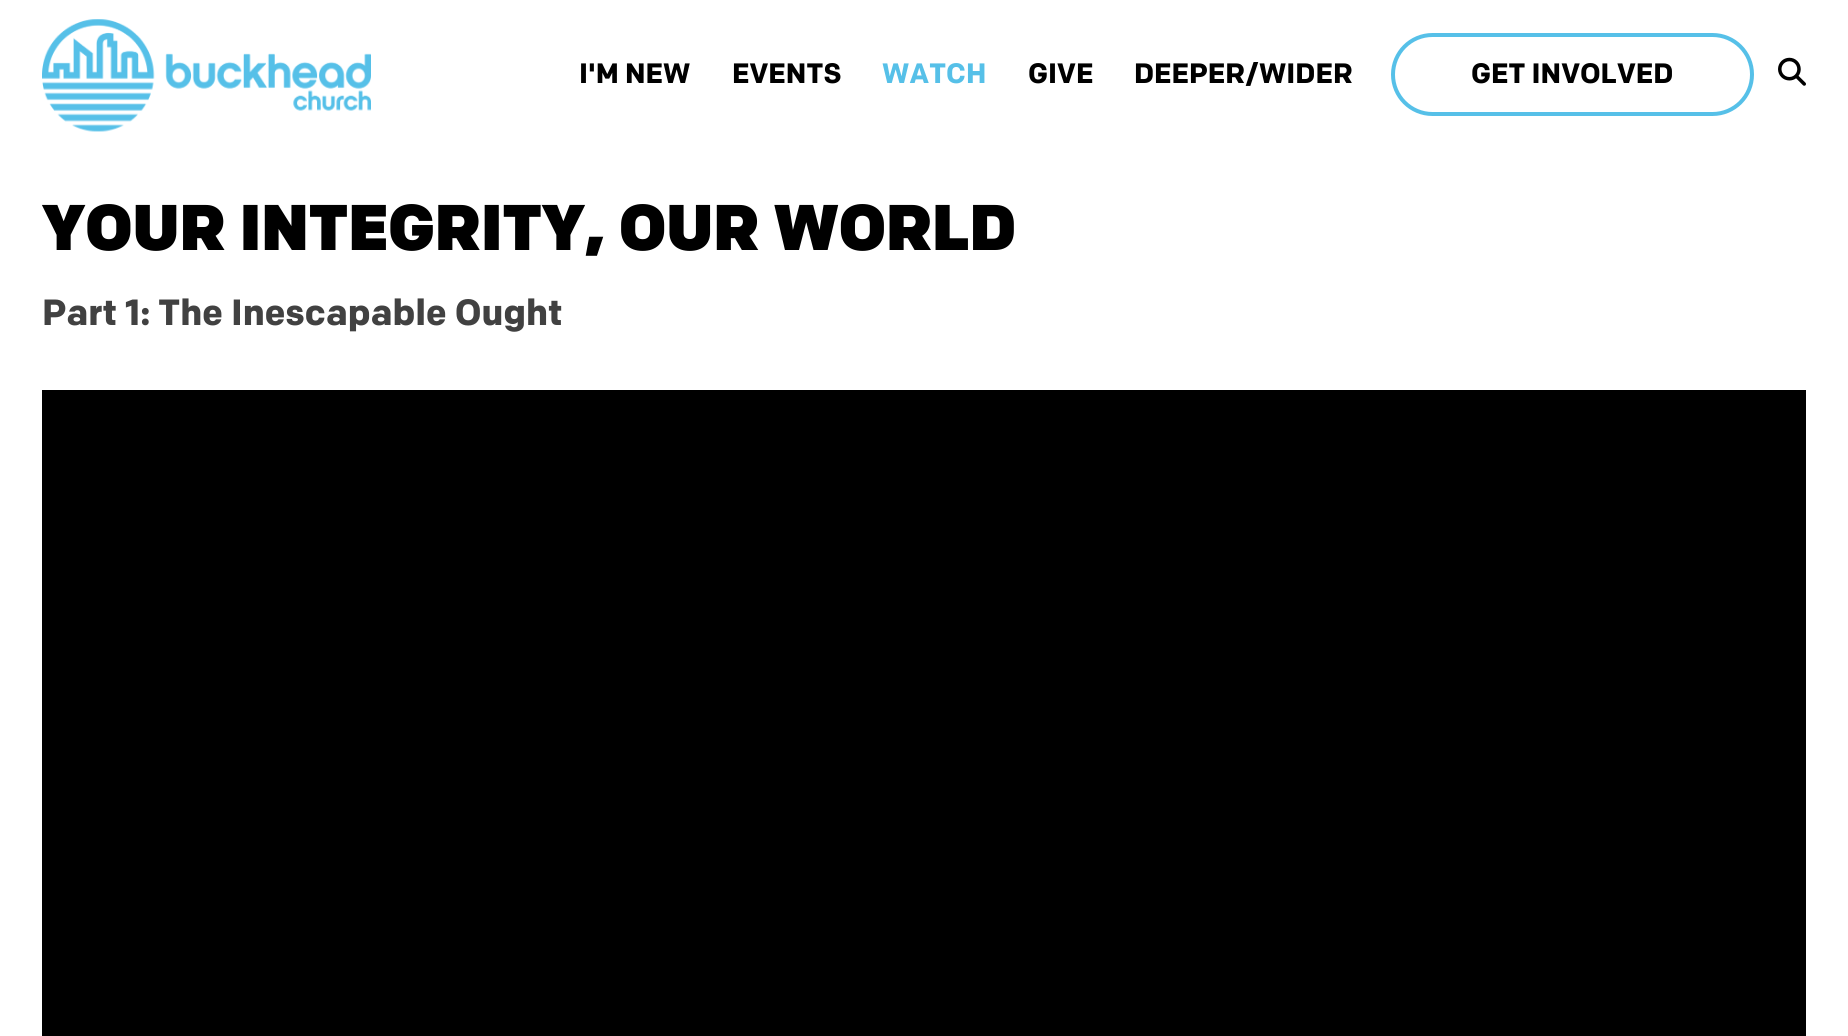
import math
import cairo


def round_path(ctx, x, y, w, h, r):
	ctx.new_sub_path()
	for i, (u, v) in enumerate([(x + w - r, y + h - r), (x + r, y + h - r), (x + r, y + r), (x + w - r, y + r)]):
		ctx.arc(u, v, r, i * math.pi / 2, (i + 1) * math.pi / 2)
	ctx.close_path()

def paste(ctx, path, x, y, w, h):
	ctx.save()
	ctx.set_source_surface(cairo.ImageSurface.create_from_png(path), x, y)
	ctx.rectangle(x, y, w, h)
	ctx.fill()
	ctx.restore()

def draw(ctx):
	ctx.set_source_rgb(1, 1, 1)
	ctx.paint()
	paste(ctx, 'media/1.png', 42, 19, 329, 113)
	ctx.select_font_face('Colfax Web', cairo.FONT_SLANT_NORMAL, cairo.FONT_WEIGHT_BOLD)
	ctx.set_font_size(28)
	ctx.set_source_rgb(0, 0, 0)
	ctx.move_to(579, 83)
	ctx.show_text('I\'M NEW')
	ctx.move_to(732, 83)
	ctx.show_text('EVENTS')
	ctx.set_source_rgb(0.337, 0.753, 0.91)
	ctx.move_to(882, 83)
	ctx.show_text('WATCH')
	ctx.set_source_rgb(0, 0, 0)
	ctx.move_to(1028, 83)
	ctx.show_text('GIVE')
	ctx.move_to(1134, 83)
	ctx.show_text('DEEPER/WIDER')
	round_path(ctx, 1393, 35, 359, 79, 39.5)
	ctx.set_source_rgb(0.337, 0.753, 0.91)
	ctx.set_line_width(4)
	ctx.stroke()
	ctx.set_source_rgb(0, 0, 0)
	ctx.move_to(1471, 83)
	ctx.show_text('GET INVOLVED')
	paste(ctx, 'media/2.png', 1778, 57, 28, 29)
	ctx.select_font_face('Colfax Web Black')
	ctx.set_font_size(64.4)
	ctx.move_to(42, 250)
	ctx.show_text('YOUR INTEGRITY, OUR WORLD')
	ctx.select_font_face('Colfax Web', cairo.FONT_SLANT_NORMAL, cairo.FONT_WEIGHT_BOLD)
	ctx.set_font_size(36.4)
	ctx.set_source_rgb(0.255, 0.255, 0.255)
	ctx.move_to(42, 325)
	ctx.show_text('Part 1: The Inescapable Ought')
	ctx.set_source_rgb(0, 0, 0)
	ctx.rectangle(42, 390, 1764, 646)
	ctx.fill()


surface = cairo.ImageSurface(cairo.FORMAT_RGB24, 1848, 1036)
ctx = cairo.Context(surface)
options = cairo.FontOptions()
options.set_hint_metrics(cairo.HINT_METRICS_OFF)
options.set_hint_style(cairo.HINT_STYLE_NONE)
ctx.set_font_options(options)
ctx.set_miter_limit(4)
draw(ctx)
surface.write_to_png('image.png')
